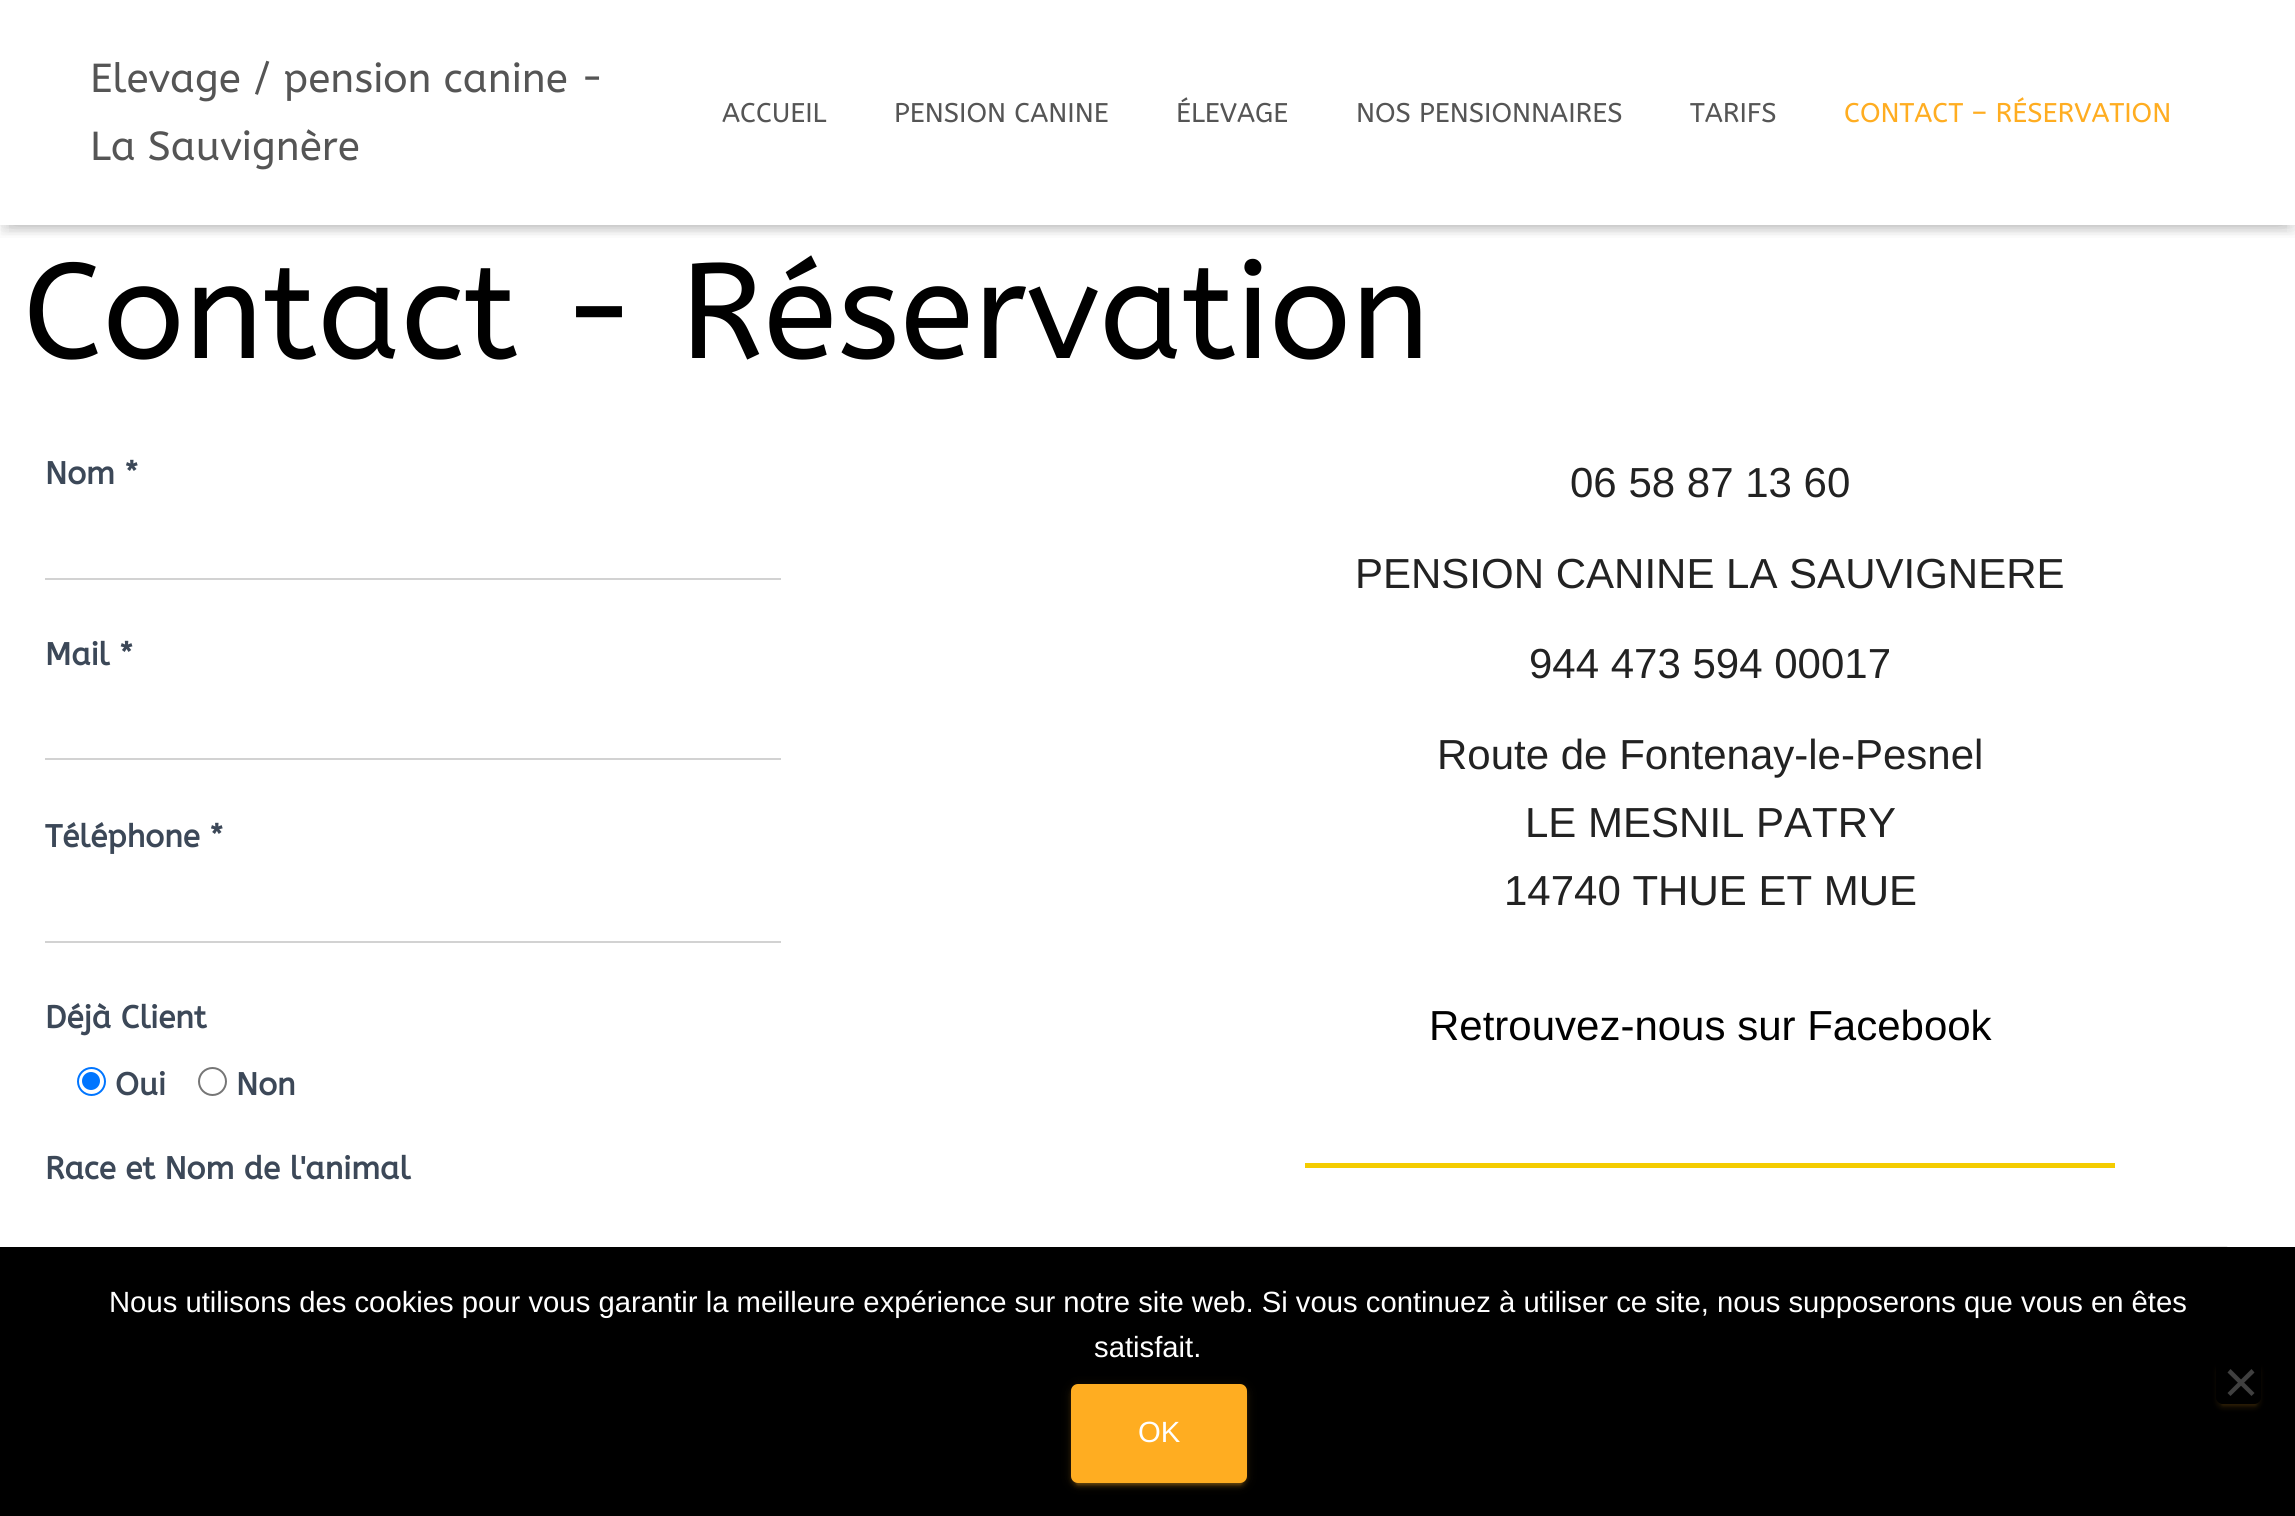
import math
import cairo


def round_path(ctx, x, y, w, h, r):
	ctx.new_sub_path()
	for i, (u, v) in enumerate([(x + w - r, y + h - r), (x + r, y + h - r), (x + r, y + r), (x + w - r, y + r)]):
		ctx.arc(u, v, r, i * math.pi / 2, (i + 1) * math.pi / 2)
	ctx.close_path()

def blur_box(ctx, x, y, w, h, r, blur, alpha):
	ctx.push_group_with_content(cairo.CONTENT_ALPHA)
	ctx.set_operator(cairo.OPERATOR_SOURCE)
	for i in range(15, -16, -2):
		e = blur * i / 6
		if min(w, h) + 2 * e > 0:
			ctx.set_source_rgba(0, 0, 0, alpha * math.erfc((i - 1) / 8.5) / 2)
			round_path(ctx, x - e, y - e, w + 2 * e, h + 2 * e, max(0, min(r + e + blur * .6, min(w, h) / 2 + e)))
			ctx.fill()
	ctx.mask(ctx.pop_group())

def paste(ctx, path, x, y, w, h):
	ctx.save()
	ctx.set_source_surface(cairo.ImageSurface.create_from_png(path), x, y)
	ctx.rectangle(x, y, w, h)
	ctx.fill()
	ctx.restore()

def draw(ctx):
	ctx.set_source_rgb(1, 1, 1)
	ctx.paint()
	ctx.save()
	ctx.rectangle(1, 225, 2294, 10)
	ctx.clip()
	ctx.set_source_rgb(0, 0, 0)
	blur_box(ctx, 5, 14, 2286, 216, 0, 5.5, 0.1)
	ctx.restore()
	ctx.save()
	ctx.rectangle(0, 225, 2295, 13)
	ctx.clip()
	ctx.set_source_rgb(0, 0, 0)
	blur_box(ctx, 0, 2, 2295, 225, 0, 11, 0.12)
	ctx.restore()
	ctx.save()
	ctx.rectangle(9, 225, 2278, 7)
	ctx.clip()
	ctx.set_source_rgb(0, 0, 0)
	blur_box(ctx, 14, 16, 2268, 198, 0, 11, 0.42)
	ctx.restore()
	ctx.select_font_face('ABeeZee')
	ctx.set_font_size(40.5)
	ctx.set_source_rgb(0.333, 0.333, 0.333)
	ctx.move_to(90, 92)
	ctx.show_text('Elevage / pension canine -')
	ctx.move_to(90, 160)
	ctx.show_text('La Sauvignère')
	ctx.set_font_size(27)
	for x, y, s in [
		(722, 122, 'ACCUEIL'),
		(894, 122, 'PENSION CANINE'),
		(1176, 122, 'ÉLEVAGE'),
		(1356, 122, 'NOS PENSIONNAIRES'),
		(1690, 122, 'TARIFS'),
	]:
		ctx.move_to(x, y)
		ctx.show_text(s)
	ctx.set_source_rgb(1, 0.678, 0.129)
	ctx.move_to(1844, 122)
	ctx.show_text('CONTACT – RÉSERVATION')
	ctx.set_font_size(135)
	ctx.set_source_rgb(0, 0, 0)
	ctx.move_to(23, 358)
	ctx.show_text('Contact - Réservation')
	ctx.select_font_face('ABeeZee', cairo.FONT_SLANT_NORMAL, cairo.FONT_WEIGHT_BOLD)
	ctx.set_font_size(31.5)
	ctx.set_source_rgb(0.235, 0.282, 0.345)
	ctx.move_to(45, 484)
	ctx.show_text('Nom *')
	ctx.set_source_rgb(0.824, 0.824, 0.824)
	ctx.rectangle(45, 578, 736, 2)
	ctx.fill()
	ctx.set_source_rgb(0.235, 0.282, 0.345)
	ctx.move_to(45, 665)
	ctx.show_text('Mail *')
	ctx.set_source_rgb(0.824, 0.824, 0.824)
	ctx.rectangle(45, 758, 736, 2)
	ctx.fill()
	ctx.set_source_rgb(0.235, 0.282, 0.345)
	ctx.move_to(45, 847)
	ctx.show_text('Téléphone *')
	ctx.set_source_rgb(0.824, 0.824, 0.824)
	ctx.rectangle(45, 941, 736, 2)
	ctx.fill()
	ctx.set_source_rgb(0.235, 0.282, 0.345)
	ctx.move_to(45, 1028)
	ctx.show_text('Déjà Client')
	ctx.new_path()
	ctx.arc(91.5, 1081.5, 13.5, 0, 2 * math.pi)
	ctx.set_source_rgb(0, 0.459, 1)
	ctx.stroke()
	ctx.arc(91, 1081, 9, 0, 2 * math.pi)
	ctx.fill()
	ctx.set_source_rgb(0.235, 0.282, 0.345)
	ctx.move_to(115, 1095)
	ctx.show_text('Oui')
	ctx.new_path()
	ctx.arc(212.5, 1081.5, 13.5, 0, 2 * math.pi)
	ctx.set_source_rgb(0.463, 0.463, 0.463)
	ctx.stroke()
	ctx.set_source_rgb(0.235, 0.282, 0.345)
	ctx.move_to(236, 1095)
	ctx.show_text('Non')
	ctx.move_to(45, 1179)
	ctx.show_text('Race et Nom de l\'animal')
	ctx.select_font_face('Liberation Sans')
	ctx.set_font_size(42)
	ctx.set_source_rgb(0.133, 0.133, 0.133)
	for x, y, s in [
		(1570, 497, '06 58 87 13 60'),
		(1355, 588, 'PENSION CANINE LA SAUVIGNERE'),
		(1529, 678, '944 473 594 00017'),
		(1437, 769, 'Route de Fontenay-le-Pesnel'),
		(1525, 837, 'LE MESNIL PATRY'),
		(1504, 905, '14740 THUE ET MUE'),
	]:
		ctx.move_to(x, y)
		ctx.show_text(s)
	ctx.set_source_rgb(0, 0, 0)
	ctx.move_to(1429, 1040)
	ctx.show_text('Retrouvez-nous sur Facebook')
	ctx.set_source_rgb(0.957, 0.8, 0)
	ctx.rectangle(1305, 1163, 810, 5)
	ctx.fill()
	paste(ctx, 'media/1.png', 1170, 1246, 1058, 1)
	ctx.set_source_rgb(0, 0, 0)
	ctx.rectangle(0, 1247, 2295, 269)
	ctx.fill()
	ctx.set_font_size(29.25)
	ctx.set_source_rgb(1, 1, 1)
	ctx.move_to(109, 1312)
	ctx.show_text('Nous utilisons des cookies pour vous garantir la meilleure expérience sur notre site web. Si vous continuez à utiliser ce site, nous supposerons que vous en êtes')
	ctx.move_to(1094, 1357)
	ctx.show_text('satisfait.')
	ctx.save()
	ctx.set_fill_rule(cairo.FILL_RULE_EVEN_ODD)
	ctx.new_path()
	ctx.move_to(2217, 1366)
	ctx.line_to(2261, 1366)
	ctx.line_to(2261, 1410)
	ctx.line_to(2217, 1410)
	ctx.close_path()
	ctx.move_to(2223, 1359)
	ctx.line_to(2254, 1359)
	ctx.curve_to(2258, 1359, 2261, 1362, 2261, 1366)
	ctx.line_to(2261, 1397)
	ctx.curve_to(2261, 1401, 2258, 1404, 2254, 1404)
	ctx.line_to(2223, 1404)
	ctx.curve_to(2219, 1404, 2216, 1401, 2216, 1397)
	ctx.line_to(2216, 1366)
	ctx.curve_to(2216, 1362, 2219, 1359, 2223, 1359)
	ctx.close_path()
	ctx.clip()
	ctx.set_source_rgb(0.502, 0.341, 0.067)
	blur_box(ctx, 2221, 1370, 36, 36, 2, 1, 0.2)
	ctx.restore()
	ctx.save()
	ctx.set_fill_rule(cairo.FILL_RULE_EVEN_ODD)
	ctx.new_path()
	ctx.move_to(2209, 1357)
	ctx.line_to(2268, 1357)
	ctx.line_to(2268, 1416)
	ctx.line_to(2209, 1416)
	ctx.close_path()
	ctx.move_to(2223, 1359)
	ctx.line_to(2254, 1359)
	ctx.curve_to(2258, 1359, 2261, 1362, 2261, 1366)
	ctx.line_to(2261, 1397)
	ctx.curve_to(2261, 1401, 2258, 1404, 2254, 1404)
	ctx.line_to(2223, 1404)
	ctx.curve_to(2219, 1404, 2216, 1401, 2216, 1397)
	ctx.line_to(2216, 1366)
	ctx.curve_to(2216, 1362, 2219, 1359, 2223, 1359)
	ctx.close_path()
	ctx.clip()
	ctx.set_source_rgb(0.502, 0.341, 0.067)
	blur_box(ctx, 2216, 1364, 45, 45, 7, 2, 0.14)
	ctx.restore()
	ctx.set_source_rgb(0.251, 0.251, 0.251)
	ctx.new_path()
	ctx.move_to(2251.5, 1369)
	ctx.line_to(2254.5, 1372.5)
	ctx.line_to(2230.5, 1396)
	ctx.line_to(2227.5, 1393)
	ctx.close_path()
	ctx.fill()
	ctx.new_path()
	ctx.move_to(2227.5, 1372.5)
	ctx.line_to(2230.5, 1369)
	ctx.line_to(2254.5, 1393)
	ctx.line_to(2251.5, 1396)
	ctx.close_path()
	ctx.fill()
	ctx.set_source_rgb(1, 0.678, 0.129)
	blur_box(ctx, 1071, 1386, 176, 99, 7, 5.5, 0.12)
	blur_box(ctx, 1076, 1395, 166, 90, 2, 1, 0.2)
	blur_box(ctx, 1071, 1388, 176, 99, 7, 2, 0.14)
	ctx.set_source_rgb(1, 0.678, 0.129)
	round_path(ctx, 1071, 1384, 176, 99, 7)
	ctx.fill()
	ctx.set_source_rgb(1, 1, 1)
	ctx.move_to(1138, 1442)
	ctx.show_text('OK')


surface = cairo.ImageSurface(cairo.FORMAT_RGB24, 2295, 1516)
ctx = cairo.Context(surface)
options = cairo.FontOptions()
options.set_hint_metrics(cairo.HINT_METRICS_OFF)
options.set_hint_style(cairo.HINT_STYLE_NONE)
ctx.set_font_options(options)
ctx.set_miter_limit(4)
draw(ctx)
surface.write_to_png('image.png')
